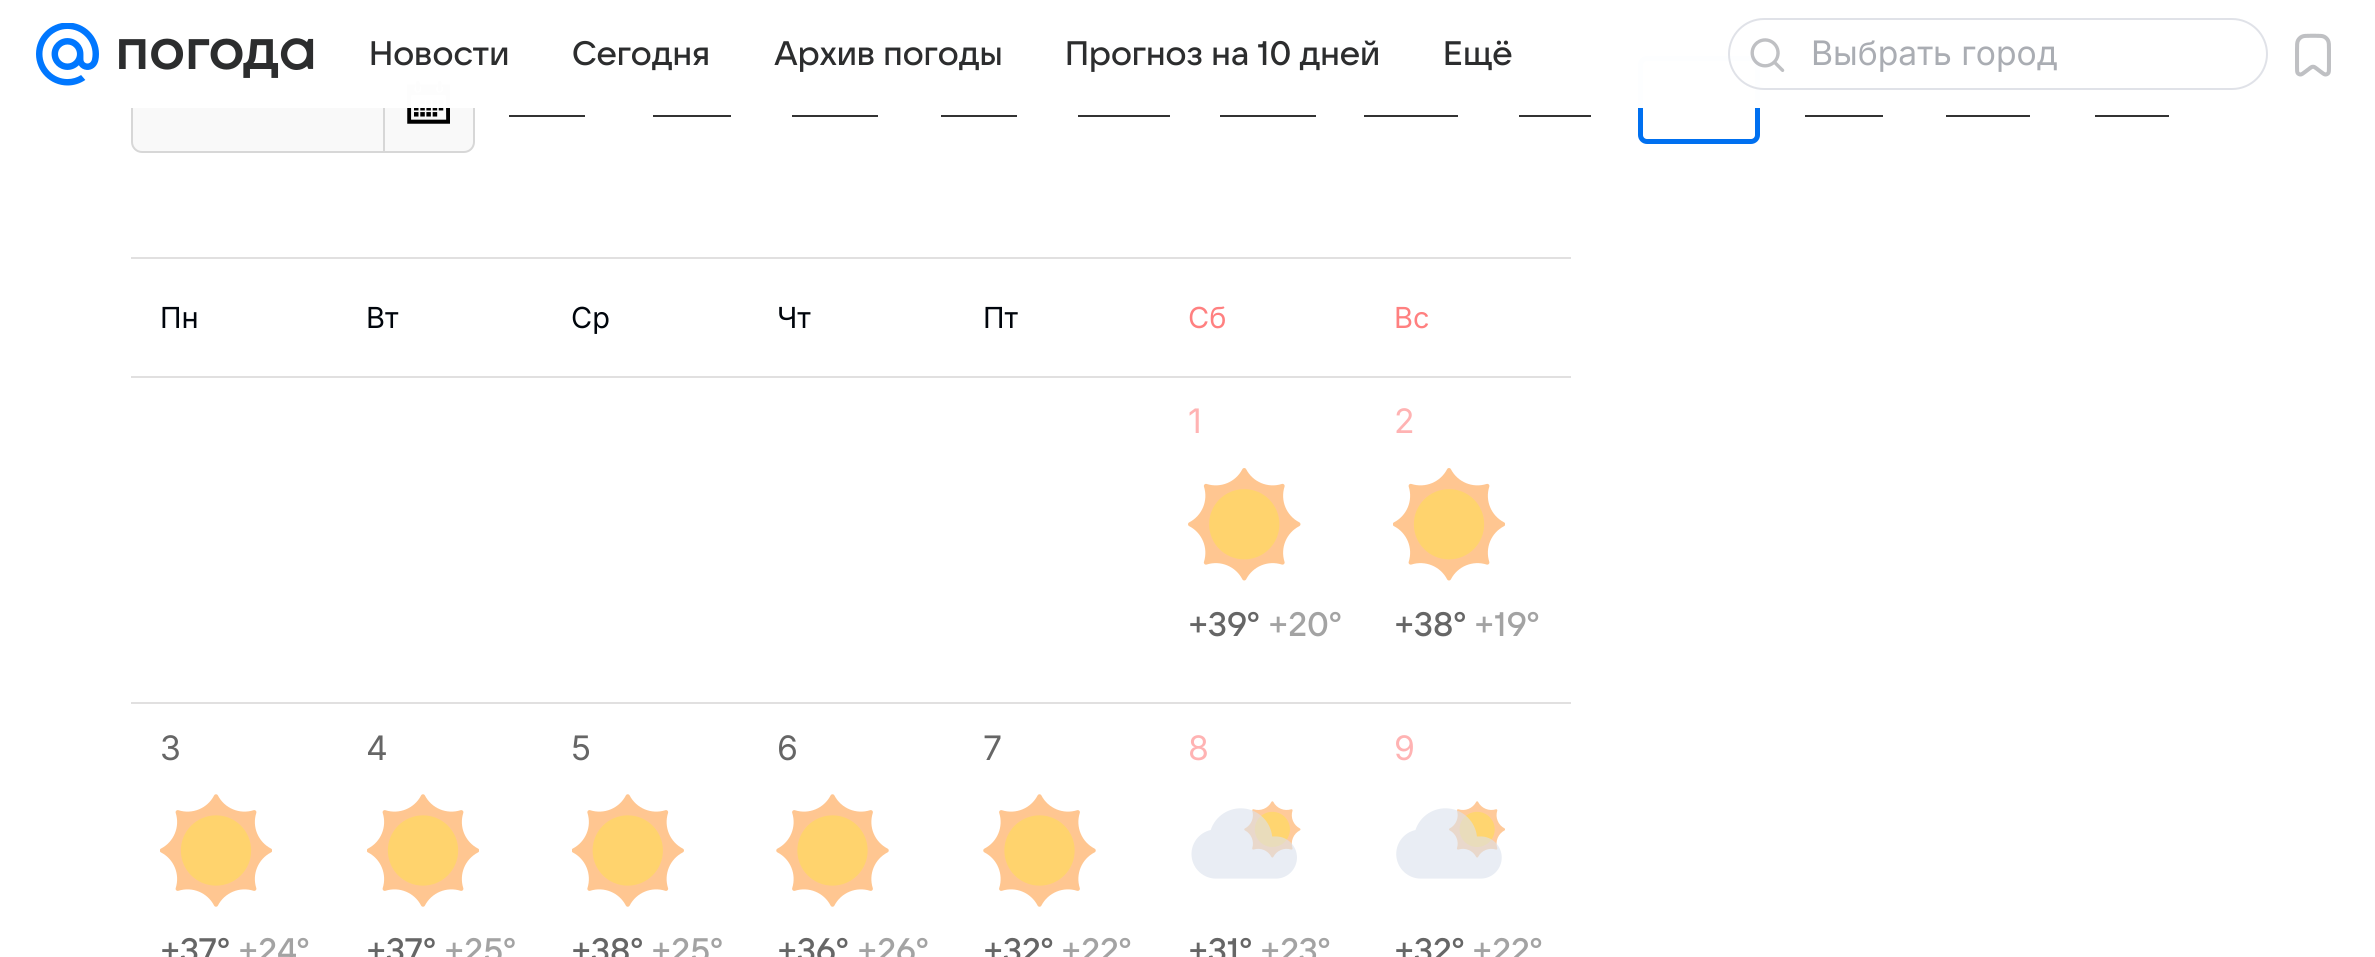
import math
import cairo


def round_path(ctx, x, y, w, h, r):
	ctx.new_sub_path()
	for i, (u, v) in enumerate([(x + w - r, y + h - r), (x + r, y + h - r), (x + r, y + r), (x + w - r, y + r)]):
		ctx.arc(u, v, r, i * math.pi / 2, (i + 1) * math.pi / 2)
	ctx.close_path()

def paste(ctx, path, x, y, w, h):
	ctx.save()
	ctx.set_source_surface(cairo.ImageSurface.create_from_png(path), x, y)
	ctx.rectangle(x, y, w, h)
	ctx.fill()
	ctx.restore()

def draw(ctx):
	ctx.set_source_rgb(1, 1, 1)
	ctx.paint()
	ctx.set_source_rgb(0.976, 0.976, 0.976)
	round_path(ctx, 132, 57, 342, 95, 10)
	ctx.fill_preserve()
	ctx.set_source_rgb(0.843, 0.843, 0.843)
	ctx.stroke()
	ctx.rectangle(383, 59, 2, 92)
	ctx.fill()
	paste(ctx, 'media/5.png', 407, 81, 43, 43)
	round_path(ctx, 1640.5, 58.5, 117, 83, 6.5)
	ctx.set_source_rgb(0, 0.439, 0.941)
	ctx.set_line_width(5)
	ctx.stroke()
	ctx.set_source_rgba(1, 1, 1, 0.9)
	ctx.rectangle(131, 56, 1629, 52)
	ctx.fill()
	ctx.rectangle(131, 56, 1629, 52)
	ctx.fill()
	paste(ctx, 'media/1.png', 36, 23, 63, 63)
	paste(ctx, 'media/2.png', 119, 38, 195, 40)
	ctx.select_font_face('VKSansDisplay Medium')
	ctx.set_font_size(33.75)
	ctx.set_source_rgb(0.173, 0.176, 0.18)
	for x, y, s in [
		(369, 65, 'Новости'),
		(572, 65, 'Сегодня'),
		(774, 65, 'Архив погоды'),
		(1065, 65, 'Прогноз на 10 дней'),
		(1443, 65, 'Ещё'),
	]:
		ctx.move_to(x, y)
		ctx.show_text(s)
	round_path(ctx, 1729, 19, 538, 70, 35)
	ctx.set_source_rgb(0.878, 0.886, 0.91)
	ctx.set_line_width(2)
	ctx.stroke()
	paste(ctx, 'media/3.png', 1750, 38, 35, 34)
	ctx.select_font_face('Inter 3')
	ctx.set_source_rgb(0.667, 0.678, 0.702)
	ctx.move_to(1811, 65)
	ctx.show_text('Выбрать город')
	paste(ctx, 'media/4.png', 2295, 33, 36, 44)
	ctx.set_source_rgb(0.2, 0.2, 0.2)
	ctx.rectangle(509, 115, 76, 2)
	ctx.rectangle(653, 115, 78, 2)
	ctx.rectangle(792, 115, 86, 2)
	ctx.rectangle(941, 115, 76, 2)
	ctx.rectangle(1078, 115, 92, 2)
	ctx.rectangle(1220, 115, 96, 2)
	ctx.rectangle(1364, 115, 94, 2)
	ctx.rectangle(1519, 115, 72, 2)
	ctx.rectangle(1805, 115, 78, 2)
	ctx.rectangle(1946, 115, 84, 2)
	ctx.rectangle(2095, 115, 74, 2)
	ctx.fill()
	ctx.set_source_rgb(0.882, 0.878, 0.878)
	ctx.rectangle(131, 257, 1440, 2)
	ctx.rectangle(131, 376, 1440, 2)
	ctx.fill()
	ctx.select_font_face('Inter')
	ctx.set_font_size(29)
	ctx.set_source_rgb(0, 0.02, 0.047)
	for x, y, s in [
		(160, 328, 'Пн'),
		(366, 328, 'Вт'),
		(571, 328, 'Ср'),
		(777, 328, 'Чт'),
		(983, 328, 'Пт'),
	]:
		ctx.move_to(x, y)
		ctx.show_text(s)
	ctx.set_source_rgb(1, 0.502, 0.502)
	ctx.move_to(1188, 328)
	ctx.show_text('Сб')
	ctx.move_to(1394, 328)
	ctx.show_text('Вс')
	ctx.set_source_rgb(0.882, 0.878, 0.878)
	ctx.rectangle(131, 702, 1440, 2)
	ctx.fill()
	ctx.set_font_size(33.75)
	ctx.set_source_rgb(1, 0.702, 0.702)
	ctx.move_to(1188, 433)
	ctx.show_text('1')
	paste(ctx, 'media/6.png', 1188, 468, 113, 113)
	ctx.select_font_face('VKSansDisplay Medium')
	ctx.set_source_rgb(0.4, 0.4, 0.4)
	ctx.move_to(1188, 636)
	ctx.show_text('+39°')
	ctx.set_source_rgb(0.639, 0.639, 0.639)
	ctx.move_to(1268, 636)
	ctx.show_text('+20°')
	ctx.select_font_face('Inter')
	ctx.set_source_rgb(1, 0.702, 0.702)
	ctx.move_to(1394, 433)
	ctx.show_text('2')
	paste(ctx, 'media/7.png', 1393, 468, 112, 113)
	ctx.select_font_face('VKSansDisplay Medium')
	ctx.set_source_rgb(0.4, 0.4, 0.4)
	ctx.move_to(1394, 636)
	ctx.show_text('+38°')
	ctx.set_source_rgb(0.639, 0.639, 0.639)
	ctx.move_to(1474, 636)
	ctx.show_text('+19°')
	ctx.select_font_face('Inter')
	ctx.set_source_rgb(0.4, 0.4, 0.4)
	ctx.move_to(160, 760)
	ctx.show_text('3')
	paste(ctx, 'media/8.png', 160, 794, 112, 113)
	ctx.select_font_face('VKSansDisplay Medium')
	ctx.move_to(160, 962)
	ctx.show_text('+37°')
	ctx.set_source_rgb(0.639, 0.639, 0.639)
	ctx.move_to(238, 962)
	ctx.show_text('+24°')
	ctx.select_font_face('Inter')
	ctx.set_source_rgb(0.4, 0.4, 0.4)
	ctx.move_to(366, 760)
	ctx.show_text('4')
	paste(ctx, 'media/8.png', 367, 794, 112, 113)
	ctx.select_font_face('VKSansDisplay Medium')
	ctx.move_to(366, 962)
	ctx.show_text('+37°')
	ctx.set_source_rgb(0.639, 0.639, 0.639)
	ctx.move_to(444, 962)
	ctx.show_text('+25°')
	ctx.select_font_face('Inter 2')
	ctx.set_source_rgb(0.4, 0.4, 0.4)
	ctx.move_to(571, 760)
	ctx.show_text('5')
	paste(ctx, 'media/9.png', 572, 794, 112, 113)
	ctx.select_font_face('VKSansDisplay Medium')
	ctx.move_to(571, 962)
	ctx.show_text('+38°')
	ctx.set_source_rgb(0.639, 0.639, 0.639)
	ctx.move_to(651, 962)
	ctx.show_text('+25°')
	ctx.select_font_face('Inter')
	ctx.set_source_rgb(0.4, 0.4, 0.4)
	ctx.move_to(777, 760)
	ctx.show_text('6')
	paste(ctx, 'media/10.png', 776, 794, 113, 113)
	ctx.select_font_face('VKSansDisplay Medium')
	ctx.move_to(777, 962)
	ctx.show_text('+36°')
	ctx.set_source_rgb(0.639, 0.639, 0.639)
	ctx.move_to(857, 962)
	ctx.show_text('+26°')
	ctx.select_font_face('Inter')
	ctx.set_source_rgb(0.4, 0.4, 0.4)
	ctx.move_to(983, 760)
	ctx.show_text('7')
	paste(ctx, 'media/10.png', 983, 794, 113, 113)
	ctx.select_font_face('VKSansDisplay Medium')
	ctx.move_to(983, 962)
	ctx.show_text('+32°')
	ctx.set_source_rgb(0.639, 0.639, 0.639)
	ctx.move_to(1061, 962)
	ctx.show_text('+22°')
	ctx.select_font_face('Inter')
	ctx.set_source_rgb(1, 0.702, 0.702)
	ctx.move_to(1188, 760)
	ctx.show_text('8')
	paste(ctx, 'media/11.png', 1191, 801, 110, 78)
	ctx.select_font_face('VKSansDisplay Medium')
	ctx.set_source_rgb(0.4, 0.4, 0.4)
	ctx.move_to(1188, 962)
	ctx.show_text('+31°')
	ctx.set_source_rgb(0.639, 0.639, 0.639)
	ctx.move_to(1260, 962)
	ctx.show_text('+23°')
	ctx.select_font_face('Inter')
	ctx.set_source_rgb(1, 0.702, 0.702)
	ctx.move_to(1394, 760)
	ctx.show_text('9')
	paste(ctx, 'media/12.png', 1396, 801, 109, 78)
	ctx.select_font_face('VKSansDisplay Medium')
	ctx.set_source_rgb(0.4, 0.4, 0.4)
	ctx.move_to(1394, 962)
	ctx.show_text('+32°')
	ctx.set_source_rgb(0.639, 0.639, 0.639)
	ctx.move_to(1472, 962)
	ctx.show_text('+22°')


surface = cairo.ImageSurface(cairo.FORMAT_RGB24, 2375, 957)
ctx = cairo.Context(surface)
options = cairo.FontOptions()
options.set_hint_metrics(cairo.HINT_METRICS_OFF)
options.set_hint_style(cairo.HINT_STYLE_NONE)
ctx.set_font_options(options)
ctx.set_miter_limit(4)
draw(ctx)
surface.write_to_png('image.png')
